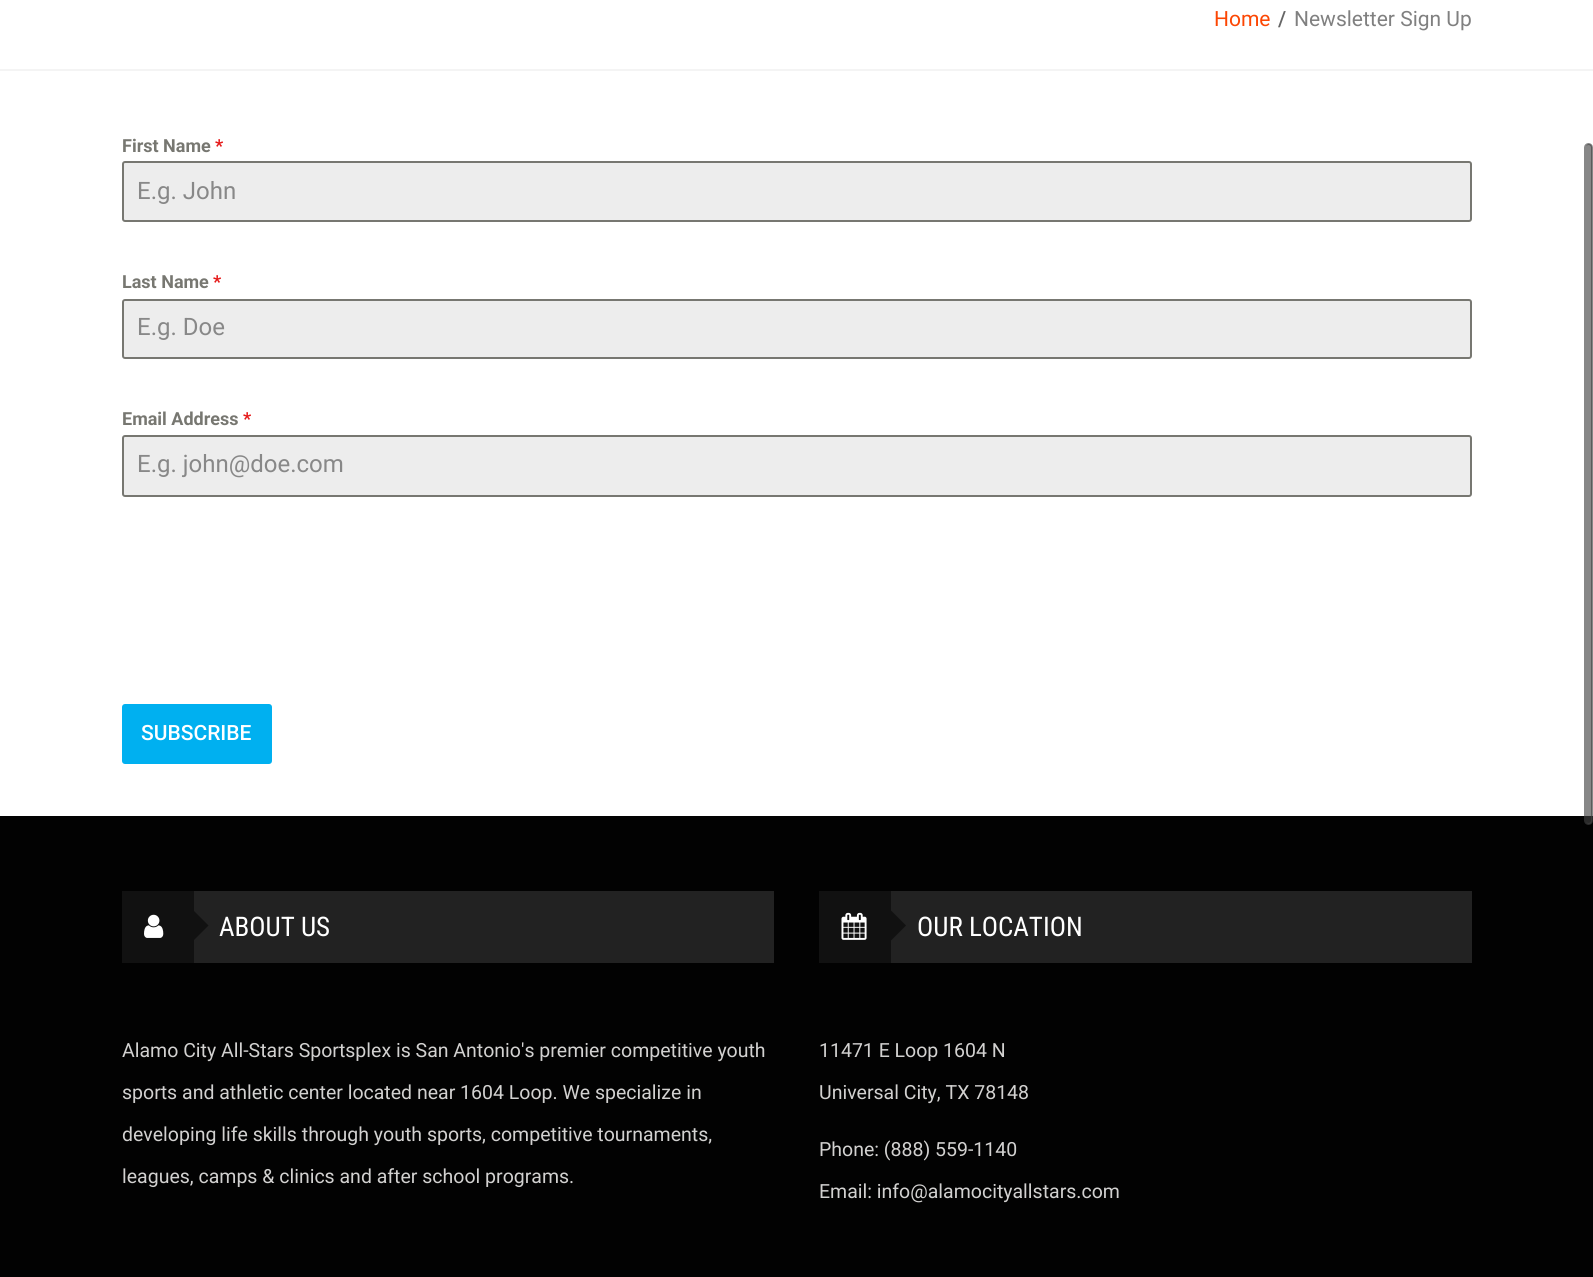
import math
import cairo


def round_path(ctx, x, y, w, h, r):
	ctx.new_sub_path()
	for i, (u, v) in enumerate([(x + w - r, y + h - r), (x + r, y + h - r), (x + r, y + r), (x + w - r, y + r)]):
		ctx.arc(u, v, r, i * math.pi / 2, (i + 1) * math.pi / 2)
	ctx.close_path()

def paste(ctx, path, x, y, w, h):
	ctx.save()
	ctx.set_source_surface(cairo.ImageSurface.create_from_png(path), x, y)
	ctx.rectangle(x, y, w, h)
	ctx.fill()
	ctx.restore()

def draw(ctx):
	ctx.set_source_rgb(1, 1, 1)
	ctx.paint()
	ctx.set_source_rgb(0.957, 0.957, 0.957)
	ctx.rectangle(0, 69, 1593, 2)
	ctx.fill()
	ctx.select_font_face('Roboto')
	ctx.set_font_size(21)
	ctx.set_source_rgb(0.988, 0.275, 0.012)
	ctx.move_to(1214, 26)
	ctx.show_text('Home')
	ctx.select_font_face('Roboto Medium')
	ctx.set_source_rgb(0.4, 0.4, 0.4)
	ctx.move_to(1278, 26)
	ctx.show_text('/')
	ctx.select_font_face('Roboto')
	ctx.set_source_rgb(0.502, 0.502, 0.502)
	ctx.move_to(1294, 26)
	ctx.show_text('Newsletter Sign Up')
	ctx.select_font_face('Roboto', cairo.FONT_SLANT_NORMAL, cairo.FONT_WEIGHT_BOLD)
	ctx.set_font_size(18)
	ctx.set_source_rgb(0.467, 0.467, 0.443)
	ctx.move_to(122, 152)
	ctx.show_text('First Name')
	ctx.set_source_rgb(0.898, 0.098, 0.098)
	ctx.move_to(215, 152)
	ctx.show_text('*')
	ctx.set_source_rgb(0.929, 0.929, 0.929)
	round_path(ctx, 123, 162, 1348, 59, 2)
	ctx.fill_preserve()
	ctx.set_source_rgb(0.467, 0.467, 0.443)
	ctx.stroke()
	ctx.select_font_face('Roboto')
	ctx.set_font_size(24)
	ctx.set_source_rgb(0.533, 0.533, 0.533)
	ctx.move_to(137, 199)
	ctx.show_text('E.g. John')
	ctx.select_font_face('Roboto', cairo.FONT_SLANT_NORMAL, cairo.FONT_WEIGHT_BOLD)
	ctx.set_font_size(18)
	ctx.set_source_rgb(0.467, 0.467, 0.443)
	ctx.move_to(122, 288)
	ctx.show_text('Last Name')
	ctx.set_source_rgb(0.898, 0.098, 0.098)
	ctx.move_to(213, 288)
	ctx.show_text('*')
	ctx.set_source_rgb(0.929, 0.929, 0.929)
	round_path(ctx, 123, 300, 1348, 58, 2)
	ctx.fill_preserve()
	ctx.set_source_rgb(0.467, 0.467, 0.443)
	ctx.stroke()
	ctx.select_font_face('Roboto')
	ctx.set_font_size(24)
	ctx.set_source_rgb(0.533, 0.533, 0.533)
	ctx.move_to(137, 335)
	ctx.show_text('E.g. Doe')
	ctx.select_font_face('Roboto', cairo.FONT_SLANT_NORMAL, cairo.FONT_WEIGHT_BOLD)
	ctx.set_font_size(18)
	ctx.set_source_rgb(0.467, 0.467, 0.443)
	ctx.move_to(122, 425)
	ctx.show_text('Email Address')
	ctx.set_source_rgb(0.898, 0.098, 0.098)
	ctx.move_to(243, 425)
	ctx.show_text('*')
	ctx.set_source_rgb(0.929, 0.929, 0.929)
	round_path(ctx, 123, 436, 1348, 60, 2)
	ctx.fill_preserve()
	ctx.set_source_rgb(0.467, 0.467, 0.443)
	ctx.stroke()
	ctx.select_font_face('Roboto')
	ctx.set_font_size(24)
	ctx.set_source_rgb(0.533, 0.533, 0.533)
	ctx.move_to(137, 472)
	ctx.show_text('E.g. john@doe.com')
	ctx.set_source_rgb(0, 0.69, 0.941)
	round_path(ctx, 122, 704, 150, 60, 3)
	ctx.fill()
	ctx.select_font_face('Roboto Medium')
	ctx.set_font_size(21)
	ctx.set_source_rgb(1, 1, 1)
	ctx.move_to(141, 740)
	ctx.show_text('SUBSCRIBE')
	ctx.set_source_rgb(0.008, 0.008, 0.008)
	ctx.rectangle(0, 816, 1593, 461)
	ctx.fill()
	ctx.set_source_rgb(0.133, 0.133, 0.133)
	ctx.rectangle(194, 891, 580, 72)
	ctx.fill()
	ctx.set_source_rgb(0.067, 0.067, 0.067)
	ctx.rectangle(122, 891, 72, 72)
	ctx.fill()
	paste(ctx, 'media/1.png', 144, 914, 20, 24)
	ctx.new_path()
	ctx.move_to(193.5, 940.5)
	ctx.line_to(193.5, 910.5)
	ctx.line_to(208.5, 925.5)
	ctx.close_path()
	ctx.fill()
	ctx.select_font_face('Roboto Condensed')
	ctx.set_font_size(27)
	ctx.set_source_rgb(1, 1, 1)
	ctx.move_to(219, 936)
	ctx.show_text('ABOUT US')
	ctx.select_font_face('Roboto')
	ctx.set_font_size(19.5)
	ctx.set_source_rgb(0.824, 0.82, 0.816)
	for x, y, s in [
		(122, 1057, 'Alamo City All-Stars Sportsplex is San Antonio\'s premier competitive youth'),
		(122, 1099, 'sports and athletic center located near 1604 Loop. We specialize in'),
		(122, 1141, 'developing life skills through youth sports, competitive tournaments,'),
		(122, 1183, 'leagues, camps & clinics and after school programs.'),
	]:
		ctx.move_to(x, y)
		ctx.show_text(s)
	ctx.set_source_rgb(0.133, 0.133, 0.133)
	ctx.rectangle(891, 891, 581, 72)
	ctx.fill()
	ctx.set_source_rgb(0.067, 0.067, 0.067)
	ctx.rectangle(819, 891, 72, 72)
	ctx.fill()
	paste(ctx, 'media/2.png', 841, 912, 26, 28)
	ctx.new_path()
	ctx.move_to(891, 940.5)
	ctx.line_to(891, 910.5)
	ctx.line_to(906, 925.5)
	ctx.close_path()
	ctx.fill()
	ctx.select_font_face('Roboto Condensed')
	ctx.set_font_size(27)
	ctx.set_source_rgb(1, 1, 1)
	ctx.move_to(917, 936)
	ctx.show_text('OUR LOCATION')
	ctx.select_font_face('Roboto')
	ctx.set_font_size(19.5)
	ctx.set_source_rgb(0.824, 0.82, 0.816)
	for x, y, s in [
		(819, 1057, '11471 E Loop 1604 N'),
		(819, 1099, 'Universal City, TX 78148'),
		(819, 1156, 'Phone: (888) 559-1140'),
		(819, 1198, 'Email: info@alamocityallstars.com'),
	]:
		ctx.move_to(x, y)
		ctx.show_text(s)
	ctx.set_source_rgba(0.259, 0.259, 0.259, 0.63)
	round_path(ctx, 1586, 144, 6, 680, 3)
	ctx.fill()
	round_path(ctx, 1585, 144, 7, 680, 3.5)
	ctx.stroke()


surface = cairo.ImageSurface(cairo.FORMAT_RGB24, 1593, 1277)
ctx = cairo.Context(surface)
options = cairo.FontOptions()
options.set_hint_metrics(cairo.HINT_METRICS_OFF)
options.set_hint_style(cairo.HINT_STYLE_NONE)
ctx.set_font_options(options)
ctx.set_miter_limit(4)
draw(ctx)
surface.write_to_png('image.png')
